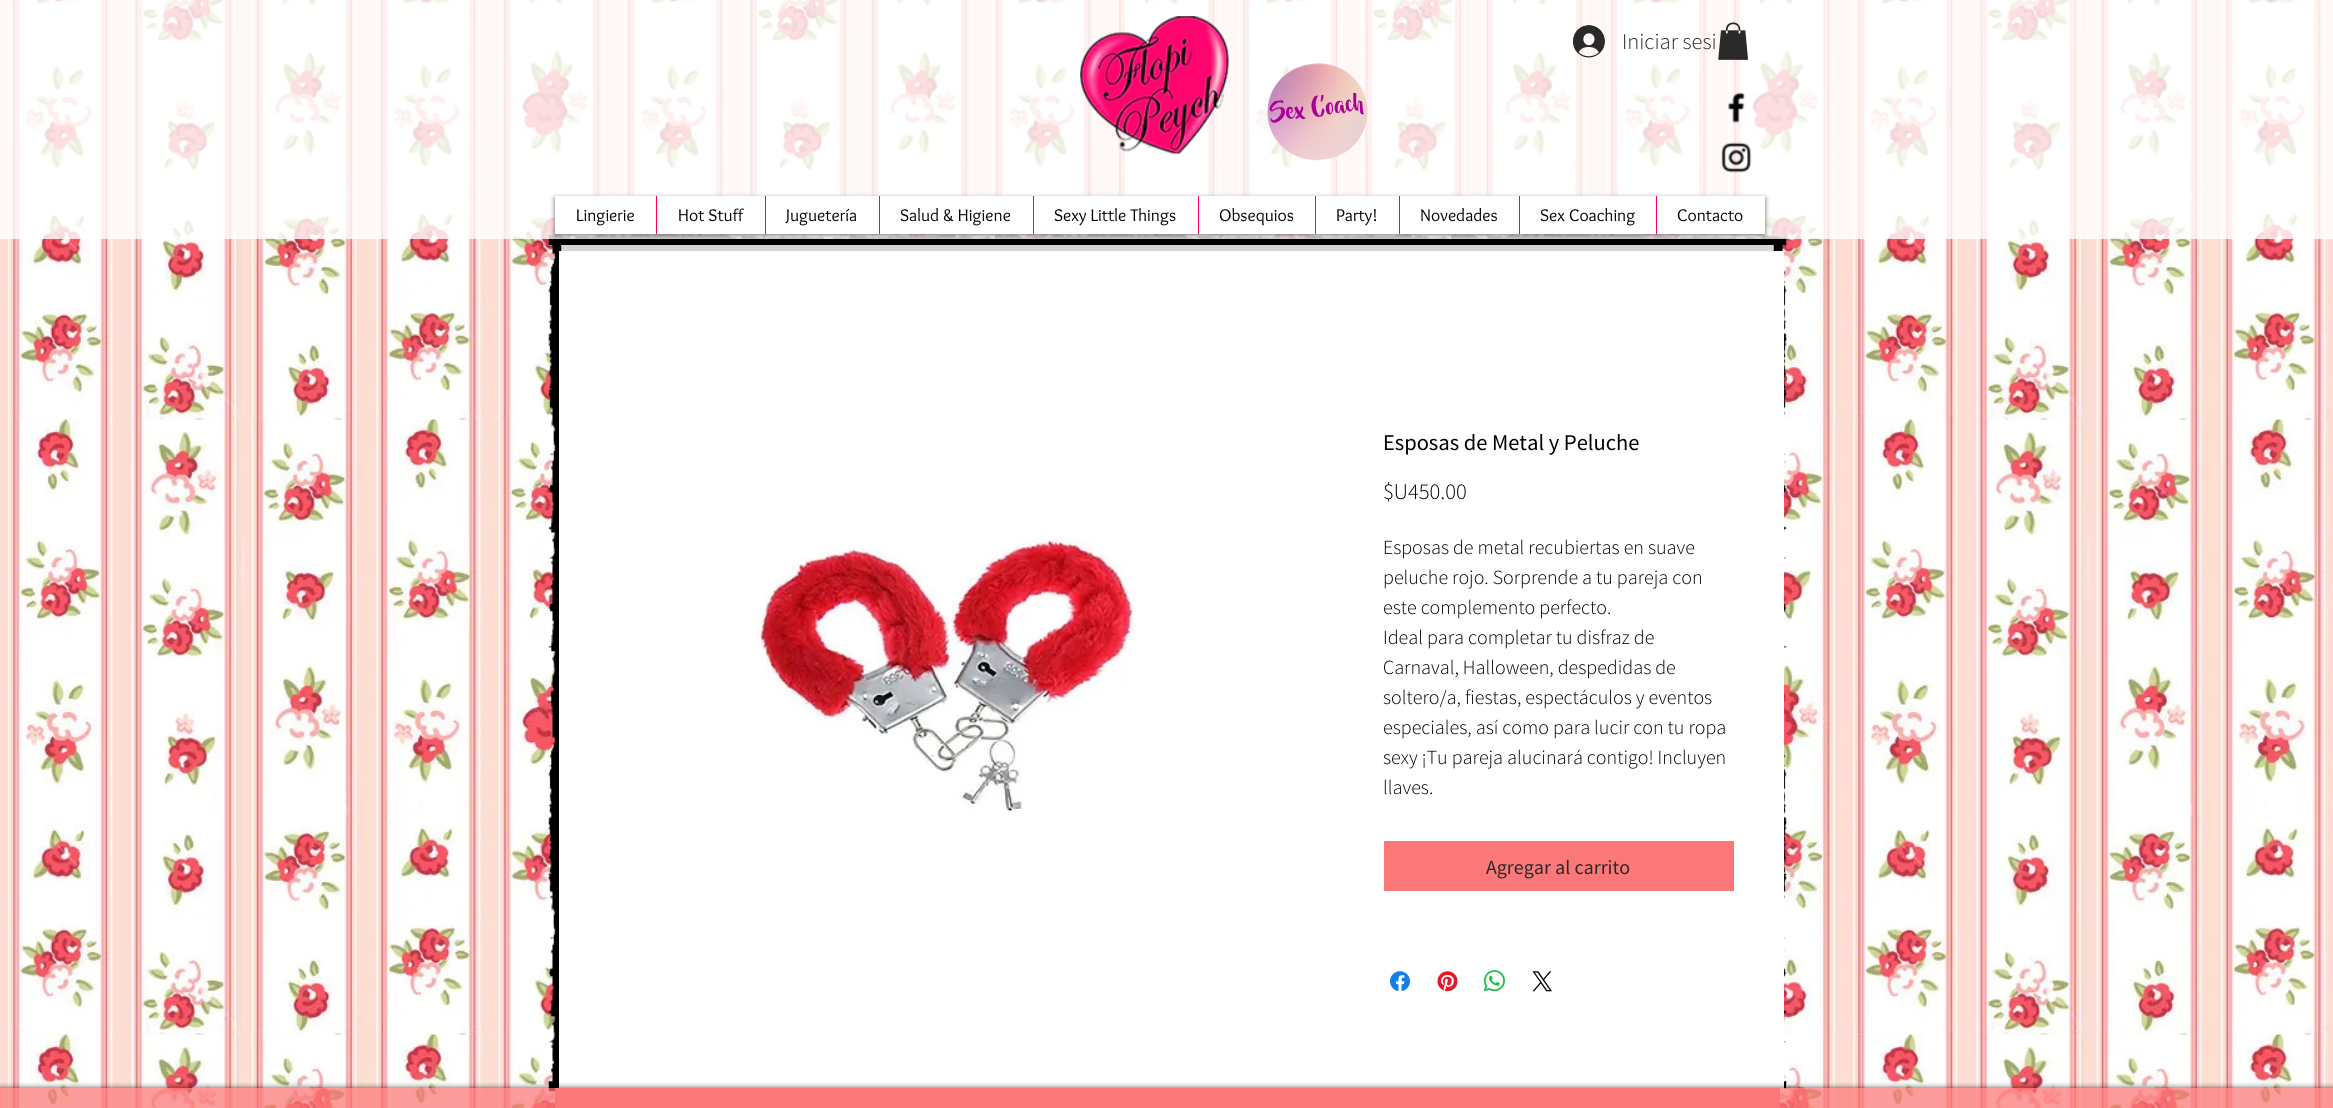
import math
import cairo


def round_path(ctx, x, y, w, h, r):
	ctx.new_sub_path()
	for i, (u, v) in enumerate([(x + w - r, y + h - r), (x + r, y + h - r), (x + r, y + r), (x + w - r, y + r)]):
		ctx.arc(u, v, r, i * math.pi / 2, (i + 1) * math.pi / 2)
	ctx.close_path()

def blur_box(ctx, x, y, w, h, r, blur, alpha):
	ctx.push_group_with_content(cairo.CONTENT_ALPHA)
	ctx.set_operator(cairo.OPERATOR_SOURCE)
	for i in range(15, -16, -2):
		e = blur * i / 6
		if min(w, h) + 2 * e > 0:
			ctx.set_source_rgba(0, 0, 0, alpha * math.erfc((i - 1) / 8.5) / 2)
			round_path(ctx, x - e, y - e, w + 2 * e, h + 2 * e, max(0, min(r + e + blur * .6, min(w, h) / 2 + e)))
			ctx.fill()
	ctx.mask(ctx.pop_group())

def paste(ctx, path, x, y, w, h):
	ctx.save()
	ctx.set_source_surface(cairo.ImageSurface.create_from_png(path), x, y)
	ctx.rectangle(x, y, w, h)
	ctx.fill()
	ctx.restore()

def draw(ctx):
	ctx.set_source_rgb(1, 1, 1)
	ctx.paint()
	paste(ctx, 'media/1.png', 0, 0, 2333, 1108)
	paste(ctx, 'media/8.png', 548, 234, 1239, 11)
	ctx.set_source_rgba(1, 1, 1, 0.8)
	ctx.rectangle(0, 0, 2333, 239)
	ctx.fill()
	paste(ctx, 'media/2.png', 1080, 16, 149, 139)
	paste(ctx, 'media/3.png', 1573, 25, 32, 33)
	ctx.select_font_face('Source Sans Pro Light')
	ctx.set_font_size(22.5)
	ctx.set_source_rgb(0.165, 0.165, 0.165)
	ctx.move_to(1622, 49)
	ctx.show_text('Iniciar sesi')
	paste(ctx, 'media/4.png', 1718, 22, 30, 38)
	paste(ctx, 'media/5.png', 1267, 63, 101, 98)
	ctx.save()
	ctx.new_path()
	ctx.move_to(1268, 102)
	ctx.line_to(1361.5, 90)
	ctx.line_to(1366, 121)
	ctx.line_to(1272, 133.5)
	ctx.close_path()
	ctx.clip()
	ctx.select_font_face('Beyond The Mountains')
	ctx.set_source_rgb(0.667, 0, 0.592)
	ctx.save()
	ctx.translate(1271, 122)
	ctx.rotate(-7.5 * math.pi / 180)
	ctx.move_to(0, 0)
	ctx.show_text('Sex Coach')
	ctx.restore()
	ctx.restore()
	paste(ctx, 'media/6.png', 1728, 92, 17, 31)
	paste(ctx, 'media/7.png', 1721, 142, 31, 31)
	ctx.set_source_rgb(0, 0, 0)
	blur_box(ctx, 555, 198, 1210, 37, 0, 2.5, 0.6)
	ctx.set_source_rgb(1, 1, 1)
	ctx.rectangle(555, 196, 1210, 38)
	ctx.fill()
	ctx.select_font_face('Overlock')
	ctx.set_font_size(17.5)
	ctx.set_source_rgb(0, 0, 0)
	ctx.move_to(576, 221)
	ctx.show_text('Lingierie')
	ctx.set_source_rgb(1, 0, 0.322)
	ctx.rectangle(656, 196, 1, 38)
	ctx.fill()
	ctx.set_source_rgb(0, 0, 0)
	ctx.move_to(678, 221)
	ctx.show_text('Hot Stuff')
	ctx.set_source_rgb(1, 0, 0.322)
	ctx.rectangle(765, 196, 1, 38)
	ctx.fill()
	ctx.set_source_rgb(0, 0, 0)
	ctx.move_to(786, 221)
	ctx.show_text('Juguetería')
	ctx.set_source_rgb(1, 0, 0.322)
	ctx.rectangle(879, 196, 1, 38)
	ctx.fill()
	ctx.set_source_rgb(0, 0, 0)
	ctx.move_to(900, 221)
	ctx.show_text('Salud & Higiene')
	ctx.set_source_rgb(1, 0, 0.322)
	ctx.rectangle(1033, 196, 1, 38)
	ctx.fill()
	ctx.set_source_rgb(0, 0, 0)
	ctx.move_to(1054, 221)
	ctx.show_text('Sexy Little Things')
	ctx.set_source_rgb(1, 0, 0.322)
	ctx.rectangle(1198, 196, 1, 38)
	ctx.fill()
	ctx.set_source_rgb(0, 0, 0)
	ctx.move_to(1219, 221)
	ctx.show_text('Obsequios')
	ctx.set_source_rgb(1, 0, 0.322)
	ctx.rectangle(1315, 196, 1, 38)
	ctx.fill()
	ctx.set_source_rgb(0, 0, 0)
	ctx.move_to(1336, 221)
	ctx.show_text('Party!')
	ctx.set_source_rgb(1, 0, 0.322)
	ctx.rectangle(1399, 196, 1, 38)
	ctx.fill()
	ctx.set_source_rgb(0, 0, 0)
	ctx.move_to(1420, 221)
	ctx.show_text('Novedades')
	ctx.set_source_rgb(1, 0, 0.322)
	ctx.rectangle(1519, 196, 1, 38)
	ctx.fill()
	ctx.set_source_rgb(0, 0, 0)
	ctx.move_to(1540, 221)
	ctx.show_text('Sex Coaching')
	ctx.set_source_rgb(1, 0, 0.322)
	ctx.rectangle(1656, 196, 1, 38)
	ctx.fill()
	ctx.set_source_rgb(0, 0, 0)
	ctx.move_to(1677, 221)
	ctx.show_text('Contacto')
	ctx.set_source_rgb(0.843, 0.831, 0.82)
	ctx.rectangle(561, 245, 1213, 6)
	ctx.fill()
	paste(ctx, 'media/9.png', 548, 1081, 1239, 12)
	paste(ctx, 'media/10.png', 548, 245, 14, 837)
	paste(ctx, 'media/11.png', 1773, 245, 14, 798)
	ctx.set_source_rgb(1, 1, 1)
	ctx.rectangle(559, 251, 1225, 840)
	ctx.fill()
	paste(ctx, 'media/12.png', 756, 538, 381, 276)
	ctx.select_font_face('Source Sans Pro')
	ctx.set_font_size(22.5)
	ctx.set_source_rgb(0, 0, 0)
	ctx.move_to(1383, 450)
	ctx.show_text('Esposas de Metal y Peluche')
	ctx.select_font_face('Source Sans Pro Light')
	ctx.move_to(1383, 499)
	ctx.show_text('$U450.00')
	ctx.set_font_size(20)
	for x, y, s in [
		(1383, 554, 'Esposas de metal recubiertas en suave'),
		(1383, 584, 'peluche rojo. Sorprende a tu pareja con'),
		(1383, 614, 'este complemento perfecto.'),
		(1383, 644, 'Ideal para completar tu disfraz de'),
		(1383, 674, 'Carnaval, Halloween, despedidas de'),
		(1383, 704, 'soltero/a, fiestas, espectáculos y eventos'),
		(1383, 734, 'especiales, así como para lucir con tu ropa'),
		(1383, 764, 'sexy ¡Tu pareja alucinará contigo! Incluyen'),
		(1383, 794, 'llaves.'),
	]:
		ctx.move_to(x, y)
		ctx.show_text(s)
	ctx.set_source_rgb(0.988, 0.467, 0.467)
	ctx.rectangle(1384, 841, 350, 50)
	ctx.fill()
	ctx.select_font_face('Source Sans Pro')
	ctx.set_source_rgb(0.165, 0.165, 0.165)
	ctx.move_to(1486, 874)
	ctx.show_text('Agregar al carrito')
	paste(ctx, 'media/13.png', 1390, 971, 20, 21)
	paste(ctx, 'media/14.png', 1437, 971, 21, 21)
	paste(ctx, 'media/15.png', 1483, 970, 22, 22)
	paste(ctx, 'media/16.png', 1532, 971, 20, 21)
	ctx.save()
	ctx.rectangle(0, 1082, 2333, 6)
	ctx.clip()
	ctx.set_source_rgb(0, 0, 0)
	blur_box(ctx, 0, 1088, 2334, 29, 0, 3, 0.7)
	ctx.restore()
	ctx.set_source_rgba(0.988, 0.467, 0.467, 0.73)
	ctx.rectangle(0, 1088, 2333, 20)
	ctx.fill()
	ctx.set_source_rgb(0.988, 0.467, 0.467)
	ctx.rectangle(555, 1088, 1225, 20)
	ctx.fill()


surface = cairo.ImageSurface(cairo.FORMAT_RGB24, 2333, 1108)
ctx = cairo.Context(surface)
options = cairo.FontOptions()
options.set_hint_metrics(cairo.HINT_METRICS_OFF)
options.set_hint_style(cairo.HINT_STYLE_NONE)
ctx.set_font_options(options)
ctx.set_miter_limit(4)
draw(ctx)
surface.write_to_png('image.png')
